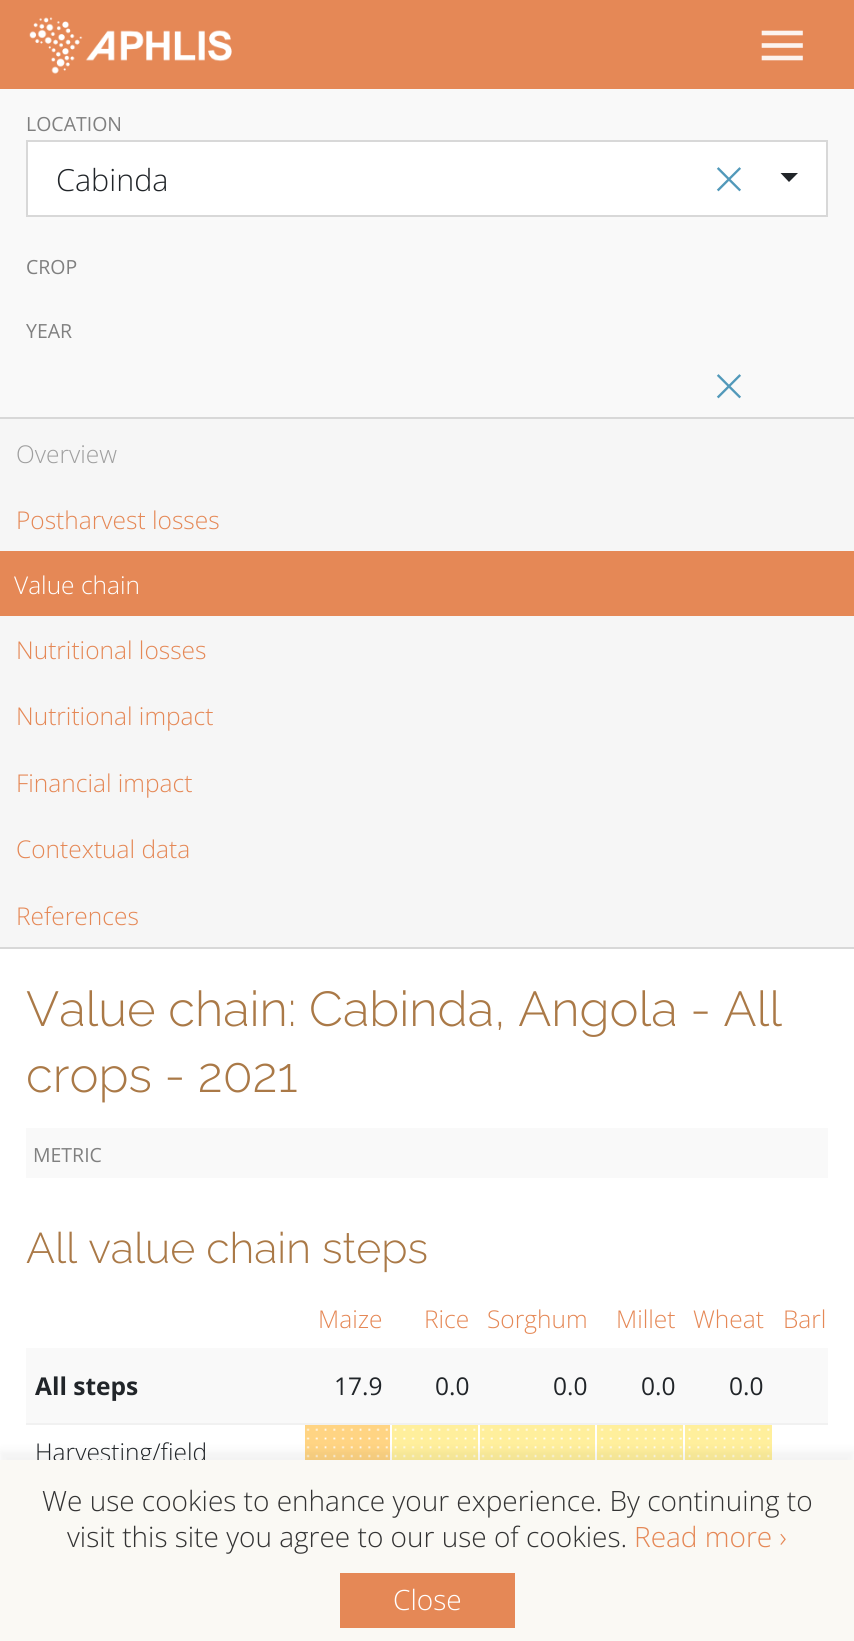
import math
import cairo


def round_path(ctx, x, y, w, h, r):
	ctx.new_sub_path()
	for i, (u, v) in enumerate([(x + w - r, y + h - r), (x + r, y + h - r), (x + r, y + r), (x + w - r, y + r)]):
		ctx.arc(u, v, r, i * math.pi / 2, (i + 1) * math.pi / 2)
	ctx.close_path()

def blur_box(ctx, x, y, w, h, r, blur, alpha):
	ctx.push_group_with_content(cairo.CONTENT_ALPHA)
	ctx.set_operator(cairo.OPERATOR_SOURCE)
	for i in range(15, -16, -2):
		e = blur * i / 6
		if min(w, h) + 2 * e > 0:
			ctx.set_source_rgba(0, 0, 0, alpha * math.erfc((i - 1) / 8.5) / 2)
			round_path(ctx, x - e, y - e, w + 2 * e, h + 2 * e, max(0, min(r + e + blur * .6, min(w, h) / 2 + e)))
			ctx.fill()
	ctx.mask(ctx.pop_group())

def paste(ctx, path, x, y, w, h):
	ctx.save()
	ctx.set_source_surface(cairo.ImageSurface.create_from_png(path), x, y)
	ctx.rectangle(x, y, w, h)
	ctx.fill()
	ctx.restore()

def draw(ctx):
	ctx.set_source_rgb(1, 1, 1)
	ctx.paint()
	ctx.set_source_rgb(0.898, 0.533, 0.337)
	ctx.rectangle(0, 0, 854, 89)
	ctx.fill()
	paste(ctx, 'media/1.png', 29, 17, 203, 57)
	ctx.new_path()
	ctx.move_to(764, 33)
	ctx.line_to(800.5, 33)
	ctx.move_to(764, 45.5)
	ctx.line_to(800.5, 45.5)
	ctx.move_to(764, 58)
	ctx.line_to(800.5, 58)
	ctx.set_source_rgb(0.988, 0.953, 0.933)
	ctx.set_line_width(4.6)
	ctx.set_line_cap(cairo.LINE_CAP_SQUARE)
	ctx.stroke()
	ctx.set_source_rgb(0.976, 0.976, 0.976)
	ctx.rectangle(0, 89, 854, 328)
	ctx.fill()
	ctx.select_font_face('Open Sans')
	ctx.set_font_size(19.5)
	ctx.set_source_rgb(0.502, 0.502, 0.502)
	ctx.move_to(26, 131)
	ctx.show_text('LOCATION')
	ctx.set_source_rgb(1, 1, 1)
	ctx.rectangle(27, 141, 800, 75)
	ctx.fill_preserve()
	ctx.set_source_rgb(0.847, 0.847, 0.847)
	ctx.set_line_width(2)
	ctx.set_line_cap(cairo.LINE_CAP_BUTT)
	ctx.stroke()
	ctx.select_font_face('Open Sans Light')
	ctx.set_font_size(30.5)
	ctx.set_source_rgb(0.129, 0.145, 0.161)
	ctx.move_to(56, 191)
	ctx.show_text('Cabinda')
	ctx.new_path()
	ctx.move_to(780.5, 173)
	ctx.line_to(798, 173)
	ctx.line_to(789, 182)
	ctx.close_path()
	ctx.fill()
	ctx.set_font_size(56)
	ctx.set_source_rgb(0.322, 0.6, 0.729)
	ctx.move_to(713, 199)
	ctx.show_text('×')
	ctx.select_font_face('Open Sans')
	ctx.set_font_size(19.5)
	ctx.set_source_rgb(0.502, 0.502, 0.502)
	ctx.move_to(26, 274)
	ctx.show_text('CROP')
	ctx.move_to(26, 338)
	ctx.show_text('YEAR')
	ctx.select_font_face('Open Sans Light')
	ctx.set_font_size(56)
	ctx.set_source_rgb(0.322, 0.6, 0.729)
	ctx.move_to(713, 406)
	ctx.show_text('×')
	ctx.set_source_rgb(0.961, 0.961, 0.961)
	ctx.rectangle(0, 419, 854, 528)
	ctx.fill()
	ctx.set_source_rgb(0.847, 0.847, 0.847)
	ctx.rectangle(0, 417, 854, 2)
	ctx.rectangle(0, 947, 854, 2)
	ctx.fill()
	ctx.set_font_size(24.5)
	ctx.set_source_rgb(0.624, 0.624, 0.624)
	ctx.move_to(16, 463)
	ctx.show_text('Overview')
	ctx.set_source_rgb(0.898, 0.533, 0.337)
	ctx.move_to(16, 529)
	ctx.show_text('Postharvest losses')
	ctx.rectangle(0, 551, 854, 65)
	ctx.fill()
	ctx.set_source_rgb(1, 1, 1)
	ctx.move_to(14, 594)
	ctx.show_text('Value chain')
	ctx.set_source_rgb(0.898, 0.533, 0.337)
	for x, y, s in [
		(16, 659, 'Nutritional losses'),
		(16, 725, 'Nutritional impact'),
		(16, 792, 'Financial impact'),
		(16, 858, 'Contextual data'),
		(16, 925, 'References'),
	]:
		ctx.move_to(x, y)
		ctx.show_text(s)
	ctx.select_font_face('Raleway Light')
	ctx.set_font_size(49)
	ctx.set_source_rgb(0.667, 0.475, 0.278)
	ctx.move_to(26, 1026)
	ctx.show_text('Value chain: Cabinda, Angola - All')
	ctx.move_to(26, 1092)
	ctx.show_text('crops - 2021')
	ctx.set_source_rgb(0.976, 0.976, 0.976)
	ctx.rectangle(26, 1128, 802, 50)
	ctx.fill()
	ctx.select_font_face('Open Sans')
	ctx.set_font_size(19.5)
	ctx.set_source_rgb(0.502, 0.502, 0.502)
	ctx.move_to(33, 1162)
	ctx.show_text('METRIC')
	ctx.select_font_face('Raleway Light')
	ctx.set_font_size(42.9)
	ctx.set_source_rgb(0.667, 0.475, 0.278)
	ctx.move_to(26, 1263)
	ctx.show_text('All value chain steps')
	ctx.select_font_face('Open Sans Light')
	ctx.set_font_size(24.5)
	ctx.set_source_rgb(0.898, 0.533, 0.337)
	for x, y, s in [
		(318, 1328, 'Maize'),
		(424, 1328, 'Rice'),
		(487, 1328, 'Sorghum'),
		(616, 1328, 'Millet'),
		(693, 1328, 'Wheat'),
		(783, 1328, 'Barl'),
	]:
		ctx.move_to(x, y)
		ctx.show_text(s)
	ctx.set_source_rgb(0.976, 0.976, 0.976)
	ctx.rectangle(26, 1348, 802, 75)
	ctx.fill()
	ctx.select_font_face('Open Sans', cairo.FONT_SLANT_NORMAL, cairo.FONT_WEIGHT_BOLD)
	ctx.set_source_rgb(0.129, 0.145, 0.161)
	ctx.move_to(35, 1395)
	ctx.show_text('All steps')
	ctx.select_font_face('Open Sans')
	for x, y, s in [
		(334, 1395, '17.9'),
		(435, 1395, '0.0'),
		(553, 1395, '0.0'),
		(641, 1395, '0.0'),
		(729, 1395, '0.0'),
	]:
		ctx.move_to(x, y)
		ctx.show_text(s)
	ctx.set_source_rgb(0.945, 0.945, 0.945)
	ctx.rectangle(26, 1423, 802, 2)
	ctx.fill()
	ctx.select_font_face('Open Sans Light')
	ctx.set_source_rgb(0.129, 0.145, 0.161)
	ctx.move_to(35, 1461)
	ctx.show_text('Harvesting/field')
	ctx.set_source_rgb(1, 0.831, 0.514)
	ctx.rectangle(305, 1425, 85, 35)
	ctx.fill()
	paste(ctx, 'media/2.png', 306, 1428, 82, 30)
	ctx.set_source_rgb(1, 0.937, 0.612)
	ctx.rectangle(392, 1425, 86, 35)
	ctx.fill()
	paste(ctx, 'media/3.png', 394, 1428, 82, 30)
	ctx.rectangle(480, 1425, 115, 35)
	ctx.fill()
	paste(ctx, 'media/4.png', 481, 1428, 109, 30)
	ctx.rectangle(597, 1425, 86, 35)
	ctx.fill()
	paste(ctx, 'media/5.png', 600, 1428, 82, 30)
	ctx.rectangle(685, 1425, 87, 35)
	ctx.fill()
	paste(ctx, 'media/3.png', 688, 1428, 82, 30)
	ctx.set_source_rgb(0, 0, 0)
	blur_box(ctx, 0, 1451, 854, 182, 0, 4.5, 0.05)
	ctx.set_source_rgb(0.98, 0.973, 0.957)
	ctx.rectangle(0, 1460, 854, 181)
	ctx.fill()
	ctx.set_font_size(28)
	ctx.set_source_rgb(0.2, 0.2, 0.2)
	ctx.move_to(42, 1511)
	ctx.show_text('We use cookies to enhance your experience. By continuing to')
	ctx.move_to(67, 1547)
	ctx.show_text('visit this site you agree to our use of cookies.')
	ctx.set_source_rgb(0.898, 0.533, 0.337)
	ctx.move_to(634, 1547)
	ctx.show_text('Read more ›')
	ctx.rectangle(340, 1573, 175, 55)
	ctx.fill()
	ctx.set_source_rgb(1, 1, 1)
	ctx.move_to(393, 1610)
	ctx.show_text('Close')


surface = cairo.ImageSurface(cairo.FORMAT_RGB24, 854, 1641)
ctx = cairo.Context(surface)
options = cairo.FontOptions()
options.set_hint_metrics(cairo.HINT_METRICS_OFF)
options.set_hint_style(cairo.HINT_STYLE_NONE)
ctx.set_font_options(options)
ctx.set_miter_limit(4)
draw(ctx)
surface.write_to_png('image.png')
